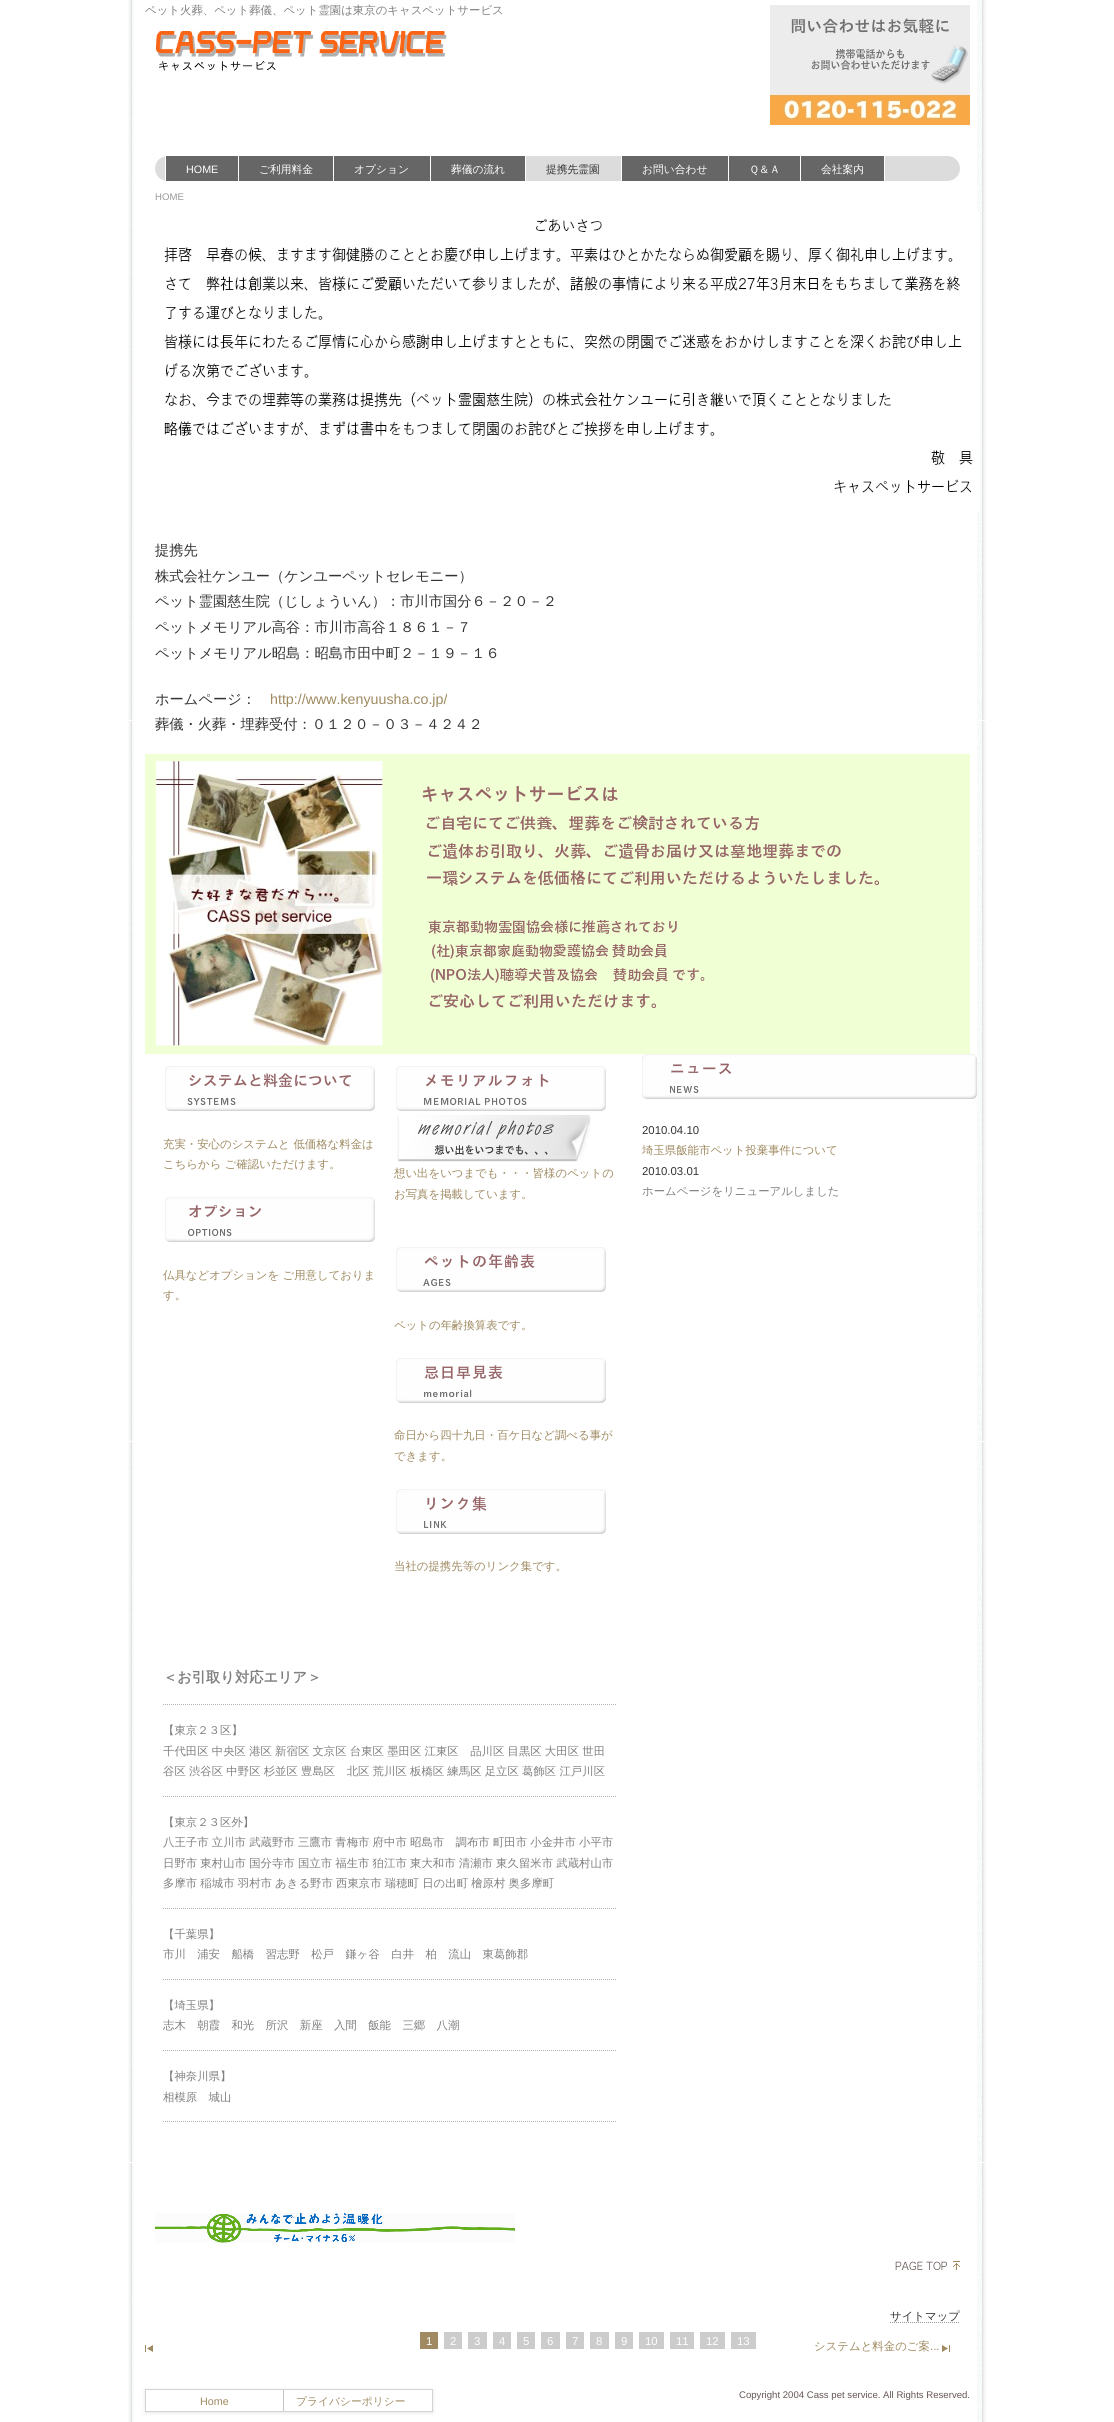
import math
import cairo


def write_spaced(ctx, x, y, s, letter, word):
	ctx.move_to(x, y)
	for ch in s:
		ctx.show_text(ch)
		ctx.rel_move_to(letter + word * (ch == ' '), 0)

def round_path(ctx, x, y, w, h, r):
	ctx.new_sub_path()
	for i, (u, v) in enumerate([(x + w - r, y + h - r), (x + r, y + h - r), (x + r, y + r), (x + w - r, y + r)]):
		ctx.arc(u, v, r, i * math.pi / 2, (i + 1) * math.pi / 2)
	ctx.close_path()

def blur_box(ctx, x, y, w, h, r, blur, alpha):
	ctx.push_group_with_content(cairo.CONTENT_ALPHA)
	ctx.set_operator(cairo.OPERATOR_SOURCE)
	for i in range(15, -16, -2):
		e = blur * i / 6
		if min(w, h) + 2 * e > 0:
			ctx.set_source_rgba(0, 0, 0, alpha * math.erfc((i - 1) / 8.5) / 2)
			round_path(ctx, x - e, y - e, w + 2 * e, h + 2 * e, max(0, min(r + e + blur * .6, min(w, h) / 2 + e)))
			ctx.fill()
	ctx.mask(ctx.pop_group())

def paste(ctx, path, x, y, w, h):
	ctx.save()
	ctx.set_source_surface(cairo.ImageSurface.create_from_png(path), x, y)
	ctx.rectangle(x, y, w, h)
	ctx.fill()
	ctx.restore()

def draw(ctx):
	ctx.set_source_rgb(1, 1, 1)
	ctx.paint()
	paste(ctx, 'media/1.png', 128, 0, 858, 2422)
	ctx.select_font_face('WenQuanYi Zen Hei Medium')
	ctx.set_font_size(11.4)
	ctx.set_source_rgb(0.502, 0.502, 0.502)
	ctx.move_to(145, 14)
	ctx.show_text('ペット火葬、ペット葬儀、ペット霊園は東京のキャスペットサービス')
	paste(ctx, 'media/2.png', 770, 5, 200, 120)
	paste(ctx, 'media/3.png', 156, 31, 291, 40)
	ctx.set_source_rgb(0.863, 0.863, 0.863)
	round_path(ctx, 155, 156, 805, 25, 12.5)
	ctx.fill()
	ctx.set_source_rgb(1, 1, 1)
	ctx.rectangle(238, 156, 1, 25)
	ctx.rectangle(165, 156, 1, 25)
	ctx.fill()
	ctx.set_source_rgb(0.4, 0.4, 0.4)
	ctx.rectangle(166, 156, 72, 25)
	ctx.fill()
	ctx.select_font_face('Liberation Sans')
	ctx.set_font_size(10.75)
	ctx.set_source_rgb(1, 1, 1)
	ctx.move_to(186, 173)
	ctx.show_text('HOME')
	ctx.rectangle(333, 156, 1, 25)
	ctx.fill()
	ctx.set_source_rgb(0.4, 0.4, 0.4)
	ctx.rectangle(239, 156, 94, 25)
	ctx.fill()
	ctx.select_font_face('WenQuanYi Zen Hei Medium')
	ctx.set_source_rgb(1, 1, 1)
	ctx.move_to(259, 173)
	ctx.show_text('ご利用料金')
	ctx.rectangle(430, 156, 1, 25)
	ctx.fill()
	ctx.set_source_rgb(0.4, 0.4, 0.4)
	ctx.rectangle(334, 156, 96, 25)
	ctx.fill()
	ctx.set_source_rgb(1, 1, 1)
	ctx.move_to(354, 173)
	ctx.show_text('オプション')
	ctx.rectangle(525, 156, 1, 25)
	ctx.fill()
	ctx.set_source_rgb(0.4, 0.4, 0.4)
	ctx.rectangle(431, 156, 94, 25)
	ctx.fill()
	ctx.set_source_rgb(1, 1, 1)
	ctx.move_to(451, 173)
	ctx.show_text('葬儀の流れ')
	ctx.rectangle(621, 156, 1, 25)
	ctx.fill()
	ctx.set_source_rgb(0.2, 0.2, 0.2)
	ctx.move_to(546, 173)
	ctx.show_text('提携先霊園')
	ctx.set_source_rgb(1, 1, 1)
	ctx.rectangle(728, 156, 1, 25)
	ctx.fill()
	ctx.set_source_rgb(0.4, 0.4, 0.4)
	ctx.rectangle(622, 156, 106, 25)
	ctx.fill()
	ctx.set_source_rgb(1, 1, 1)
	ctx.move_to(642, 173)
	ctx.show_text('お問い合わせ')
	ctx.rectangle(800, 156, 1, 25)
	ctx.fill()
	ctx.set_source_rgb(0.4, 0.4, 0.4)
	ctx.rectangle(729, 156, 71, 25)
	ctx.fill()
	ctx.set_source_rgb(1, 1, 1)
	ctx.move_to(749, 173)
	ctx.show_text('Ｑ＆Ａ')
	ctx.rectangle(884, 156, 1, 25)
	ctx.fill()
	ctx.set_source_rgb(0.4, 0.4, 0.4)
	ctx.rectangle(801, 156, 83, 25)
	ctx.fill()
	ctx.set_source_rgb(1, 1, 1)
	ctx.move_to(821, 173)
	ctx.show_text('会社案内')
	ctx.select_font_face('Liberation Sans')
	ctx.set_font_size(9.6)
	ctx.set_source_rgb(0.6, 0.6, 0.6)
	ctx.move_to(155, 200)
	ctx.show_text('HOME')
	paste(ctx, 'media/4.png', 164, 212, 816, 300)
	ctx.select_font_face('WenQuanYi Zen Hei Medium')
	ctx.set_font_size(14.25)
	ctx.set_source_rgb(0.2, 0.2, 0.2)
	for x, y, s in [
		(155, 555, '提携先'),
		(155, 581, '株式会社ケンユー（ケンユーペットセレモニー）'),
		(155, 606, 'ペット霊園慈生院（じしょういん）：市川市国分６－２０－２'),
		(155, 632, 'ペットメモリアル高谷：市川市高谷１８６１－７'),
		(155, 658, 'ペットメモリアル昭島：昭島市田中町２－１９－１６'),
		(155, 704, 'ホームページ：'),
	]:
		ctx.move_to(x, y)
		ctx.show_text(s)
	ctx.select_font_face('Liberation Sans')
	ctx.set_source_rgb(0.624, 0.541, 0.38)
	ctx.move_to(270, 704)
	ctx.show_text('http://www.kenyuusha.co.jp/')
	ctx.select_font_face('WenQuanYi Zen Hei Medium')
	ctx.set_source_rgb(0.2, 0.2, 0.2)
	ctx.move_to(155, 729)
	ctx.show_text('葬儀・火葬・埋葬受付：０１２０－０３－４２４２')
	paste(ctx, 'media/5.png', 145, 754, 825, 300)
	paste(ctx, 'media/6.png', 165, 1066, 210, 45)
	ctx.set_font_size(11.4)
	ctx.set_source_rgb(0.624, 0.541, 0.38)
	ctx.move_to(163, 1148)
	ctx.show_text('充実・安心のシステムと 低価格な料金は')
	ctx.move_to(163, 1168)
	ctx.show_text('こちらから ご確認いただけます。')
	paste(ctx, 'media/7.png', 165, 1197, 210, 45)
	ctx.move_to(163, 1279)
	ctx.show_text('仏具などオプションを ご用意しておりま')
	ctx.move_to(163, 1299)
	ctx.show_text('す。')
	paste(ctx, 'media/8.png', 396, 1066, 210, 45)
	paste(ctx, 'media/9.png', 397, 1115, 194, 47)
	ctx.move_to(394, 1177)
	ctx.show_text('想い出をいつまでも・・・皆様のペットの')
	ctx.move_to(394, 1198)
	ctx.show_text('お写真を掲載しています。')
	paste(ctx, 'media/10.png', 396, 1247, 210, 45)
	ctx.move_to(394, 1329)
	ctx.show_text('ペットの年齢換算表です。')
	paste(ctx, 'media/11.png', 396, 1358, 210, 45)
	ctx.move_to(394, 1439)
	ctx.show_text('命日から四十九日・百ケ日など調べる事が')
	ctx.move_to(394, 1460)
	ctx.show_text('できます。')
	paste(ctx, 'media/12.png', 396, 1489, 210, 45)
	ctx.move_to(394, 1570)
	ctx.show_text('当社の提携先等のリンク集です。')
	ctx.select_font_face('WenQuanYi Zen Hei', cairo.FONT_SLANT_NORMAL, cairo.FONT_WEIGHT_BOLD)
	ctx.set_font_size(14.25)
	ctx.set_source_rgb(0.502, 0.502, 0.502)
	ctx.move_to(163, 1682)
	ctx.show_text('＜お引取り対応エリア＞')
	paste(ctx, 'media/13.png', 163, 1704, 453, 1)
	ctx.select_font_face('WenQuanYi Zen Hei Medium')
	ctx.set_font_size(11.4)
	ctx.move_to(163, 1734)
	ctx.show_text('【東京２３区】')
	write_spaced(ctx, 163, 1755, '千代田区 中央区 港区 新宿区 文京区 台東区 墨田区 江東区　品川区 目黒区 大田区 世田', 0, -0.25)
	write_spaced(ctx, 163, 1775, '谷区 渋谷区 中野区 杉並区 豊島区　北区 荒川区 板橋区 練馬区 足立区 葛飾区 江戸川区', 0, -0.25)
	paste(ctx, 'media/13.png', 163, 1796, 453, 1)
	ctx.move_to(163, 1826)
	ctx.show_text('【東京２３区外】')
	for x, y, s in [
		(163, 1846, '八王子市 立川市 武蔵野市 三鷹市 青梅市 府中市 昭島市　調布市 町田市 小金井市 小平市'),
		(163, 1867, '日野市 東村山市 国分寺市 国立市 福生市 狛江市 東大和市 清瀬市 東久留米市 武蔵村山市'),
		(163, 1887, '多摩市 稲城市 羽村市 あきる野市 西東京市 瑞穂町 日の出町 檜原村 奥多摩町'),
	]:
		write_spaced(ctx, x, y, s, 0, -0.25)
	paste(ctx, 'media/13.png', 163, 1908, 453, 1)
	ctx.move_to(163, 1938)
	ctx.show_text('【千葉県】')
	ctx.move_to(163, 1958)
	ctx.show_text('市川　浦安　船橋　習志野　松戸　鎌ヶ谷　白井　柏　流山　東葛飾郡')
	paste(ctx, 'media/13.png', 163, 1979, 453, 1)
	ctx.move_to(163, 2009)
	ctx.show_text('【埼玉県】')
	ctx.move_to(163, 2029)
	ctx.show_text('志木　朝霞　和光　所沢　新座　入間　飯能　三郷　八潮')
	paste(ctx, 'media/13.png', 163, 2050, 453, 1)
	ctx.move_to(163, 2080)
	ctx.show_text('【神奈川県】')
	ctx.move_to(163, 2101)
	ctx.show_text('相模原　城山')
	paste(ctx, 'media/13.png', 163, 2121, 453, 1)
	paste(ctx, 'media/14.png', 642, 1054, 335, 45)
	ctx.select_font_face('Liberation Sans')
	ctx.set_source_rgb(0.2, 0.2, 0.2)
	ctx.move_to(642, 1134)
	ctx.show_text('2010.04.10')
	ctx.select_font_face('WenQuanYi Zen Hei Medium')
	ctx.set_source_rgb(0.624, 0.541, 0.38)
	ctx.move_to(642, 1154)
	ctx.show_text('埼玉県飯能市ペット投棄事件について')
	ctx.select_font_face('Liberation Sans')
	ctx.set_source_rgb(0.2, 0.2, 0.2)
	ctx.move_to(642, 1175)
	ctx.show_text('2010.03.01')
	ctx.select_font_face('WenQuanYi Zen Hei Medium')
	ctx.set_source_rgb(0.502, 0.502, 0.502)
	ctx.move_to(642, 1195)
	ctx.show_text('ホームページをリニューアルしました')
	paste(ctx, 'media/15.png', 155, 2213, 360, 30)
	paste(ctx, 'media/16.png', 895, 2261, 65, 9)
	ctx.set_source_rgb(0.2, 0.2, 0.2)
	ctx.move_to(890, 2320)
	ctx.show_text('サイトマップ')
	ctx.new_path()
	ctx.move_to(890, 2322.5)
	ctx.line_to(960, 2322.5)
	ctx.set_source_rgb(0.6, 0.6, 0.6)
	ctx.set_line_width(1)
	ctx.set_dash([1, 1])
	ctx.stroke()
	paste(ctx, 'media/17.png', 145, 2345, 8, 7)
	ctx.set_source_rgb(0.624, 0.541, 0.38)
	ctx.rectangle(420, 2332, 18, 17)
	ctx.fill()
	ctx.select_font_face('Liberation Sans')
	ctx.set_source_rgb(1, 1, 1)
	ctx.move_to(426, 2345)
	ctx.show_text('1')
	ctx.set_source_rgb(0.8, 0.8, 0.8)
	ctx.rectangle(444, 2332, 18, 17)
	ctx.fill()
	ctx.set_source_rgb(1, 1, 1)
	ctx.move_to(450, 2345)
	ctx.show_text('2')
	ctx.set_source_rgb(0.8, 0.8, 0.8)
	ctx.rectangle(468, 2332, 19, 17)
	ctx.fill()
	ctx.set_source_rgb(1, 1, 1)
	ctx.move_to(474, 2345)
	ctx.show_text('3')
	ctx.set_source_rgb(0.8, 0.8, 0.8)
	ctx.rectangle(493, 2332, 18, 17)
	ctx.fill()
	ctx.set_source_rgb(1, 1, 1)
	ctx.move_to(499, 2345)
	ctx.show_text('4')
	ctx.set_source_rgb(0.8, 0.8, 0.8)
	ctx.rectangle(517, 2332, 18, 17)
	ctx.fill()
	ctx.set_source_rgb(1, 1, 1)
	ctx.move_to(523, 2345)
	ctx.show_text('5')
	ctx.set_source_rgb(0.8, 0.8, 0.8)
	ctx.rectangle(541, 2332, 19, 17)
	ctx.fill()
	ctx.set_source_rgb(1, 1, 1)
	ctx.move_to(547, 2345)
	ctx.show_text('6')
	ctx.set_source_rgb(0.8, 0.8, 0.8)
	ctx.rectangle(566, 2332, 18, 17)
	ctx.fill()
	ctx.set_source_rgb(1, 1, 1)
	ctx.move_to(572, 2345)
	ctx.show_text('7')
	ctx.set_source_rgb(0.8, 0.8, 0.8)
	ctx.rectangle(590, 2332, 19, 17)
	ctx.fill()
	ctx.set_source_rgb(1, 1, 1)
	ctx.move_to(596, 2345)
	ctx.show_text('8')
	ctx.set_source_rgb(0.8, 0.8, 0.8)
	ctx.rectangle(615, 2332, 18, 17)
	ctx.fill()
	ctx.set_source_rgb(1, 1, 1)
	ctx.move_to(621, 2345)
	ctx.show_text('9')
	ctx.set_source_rgb(0.8, 0.8, 0.8)
	ctx.rectangle(639, 2332, 25, 17)
	ctx.fill()
	ctx.set_source_rgb(1, 1, 1)
	ctx.move_to(645, 2345)
	ctx.show_text('10')
	ctx.set_source_rgb(0.8, 0.8, 0.8)
	ctx.rectangle(670, 2332, 24, 17)
	ctx.fill()
	ctx.set_source_rgb(1, 1, 1)
	ctx.move_to(676, 2345)
	ctx.show_text('11')
	ctx.set_source_rgb(0.8, 0.8, 0.8)
	ctx.rectangle(700, 2332, 25, 17)
	ctx.fill()
	ctx.set_source_rgb(1, 1, 1)
	ctx.move_to(706, 2345)
	ctx.show_text('12')
	ctx.set_source_rgb(0.8, 0.8, 0.8)
	ctx.rectangle(731, 2332, 25, 17)
	ctx.fill()
	ctx.set_source_rgb(1, 1, 1)
	ctx.move_to(737, 2345)
	ctx.show_text('13')
	ctx.select_font_face('WenQuanYi Zen Hei Medium')
	ctx.set_source_rgb(0.624, 0.541, 0.38)
	ctx.move_to(814, 2350)
	ctx.show_text('システムと料金のご案')
	ctx.select_font_face('Liberation Sans')
	ctx.move_to(930, 2350)
	ctx.show_text('...')
	paste(ctx, 'media/18.png', 942, 2345, 8, 7)
	ctx.save()
	ctx.set_fill_rule(cairo.FILL_RULE_EVEN_ODD)
	ctx.new_path()
	ctx.move_to(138, 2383)
	ctx.line_to(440, 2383)
	ctx.line_to(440, 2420)
	ctx.line_to(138, 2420)
	ctx.close_path()
	ctx.move_to(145, 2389)
	ctx.line_to(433, 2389)
	ctx.line_to(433, 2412)
	ctx.line_to(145, 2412)
	ctx.close_path()
	ctx.clip()
	ctx.set_source_rgb(0, 0, 0)
	blur_box(ctx, 145, 2390, 288, 23, 0, 2, 0.1)
	ctx.restore()
	ctx.rectangle(145.5, 2389.5, 287, 22)
	ctx.set_source_rgb(0.827, 0.827, 0.827)
	ctx.set_dash([])
	ctx.stroke()
	ctx.set_source_rgb(0.773, 0.773, 0.773)
	ctx.rectangle(283, 2390, 1, 21)
	ctx.fill()
	ctx.set_font_size(10.75)
	ctx.set_source_rgb(0.624, 0.541, 0.38)
	ctx.move_to(200, 2405)
	ctx.show_text('Home')
	ctx.select_font_face('WenQuanYi Zen Hei Medium')
	ctx.move_to(296, 2405)
	ctx.show_text('プライバシーポリシー')
	ctx.select_font_face('Liberation Sans')
	ctx.set_font_size(9.6)
	ctx.set_source_rgb(0.392, 0.337, 0.329)
	ctx.move_to(739, 2398)
	ctx.show_text('Copyright 2004 Cass pet service. All Rights Reserved.')


surface = cairo.ImageSurface(cairo.FORMAT_RGB24, 1114, 2422)
ctx = cairo.Context(surface)
options = cairo.FontOptions()
options.set_hint_metrics(cairo.HINT_METRICS_OFF)
options.set_hint_style(cairo.HINT_STYLE_NONE)
ctx.set_font_options(options)
ctx.set_miter_limit(4)
draw(ctx)
surface.write_to_png('image.png')
